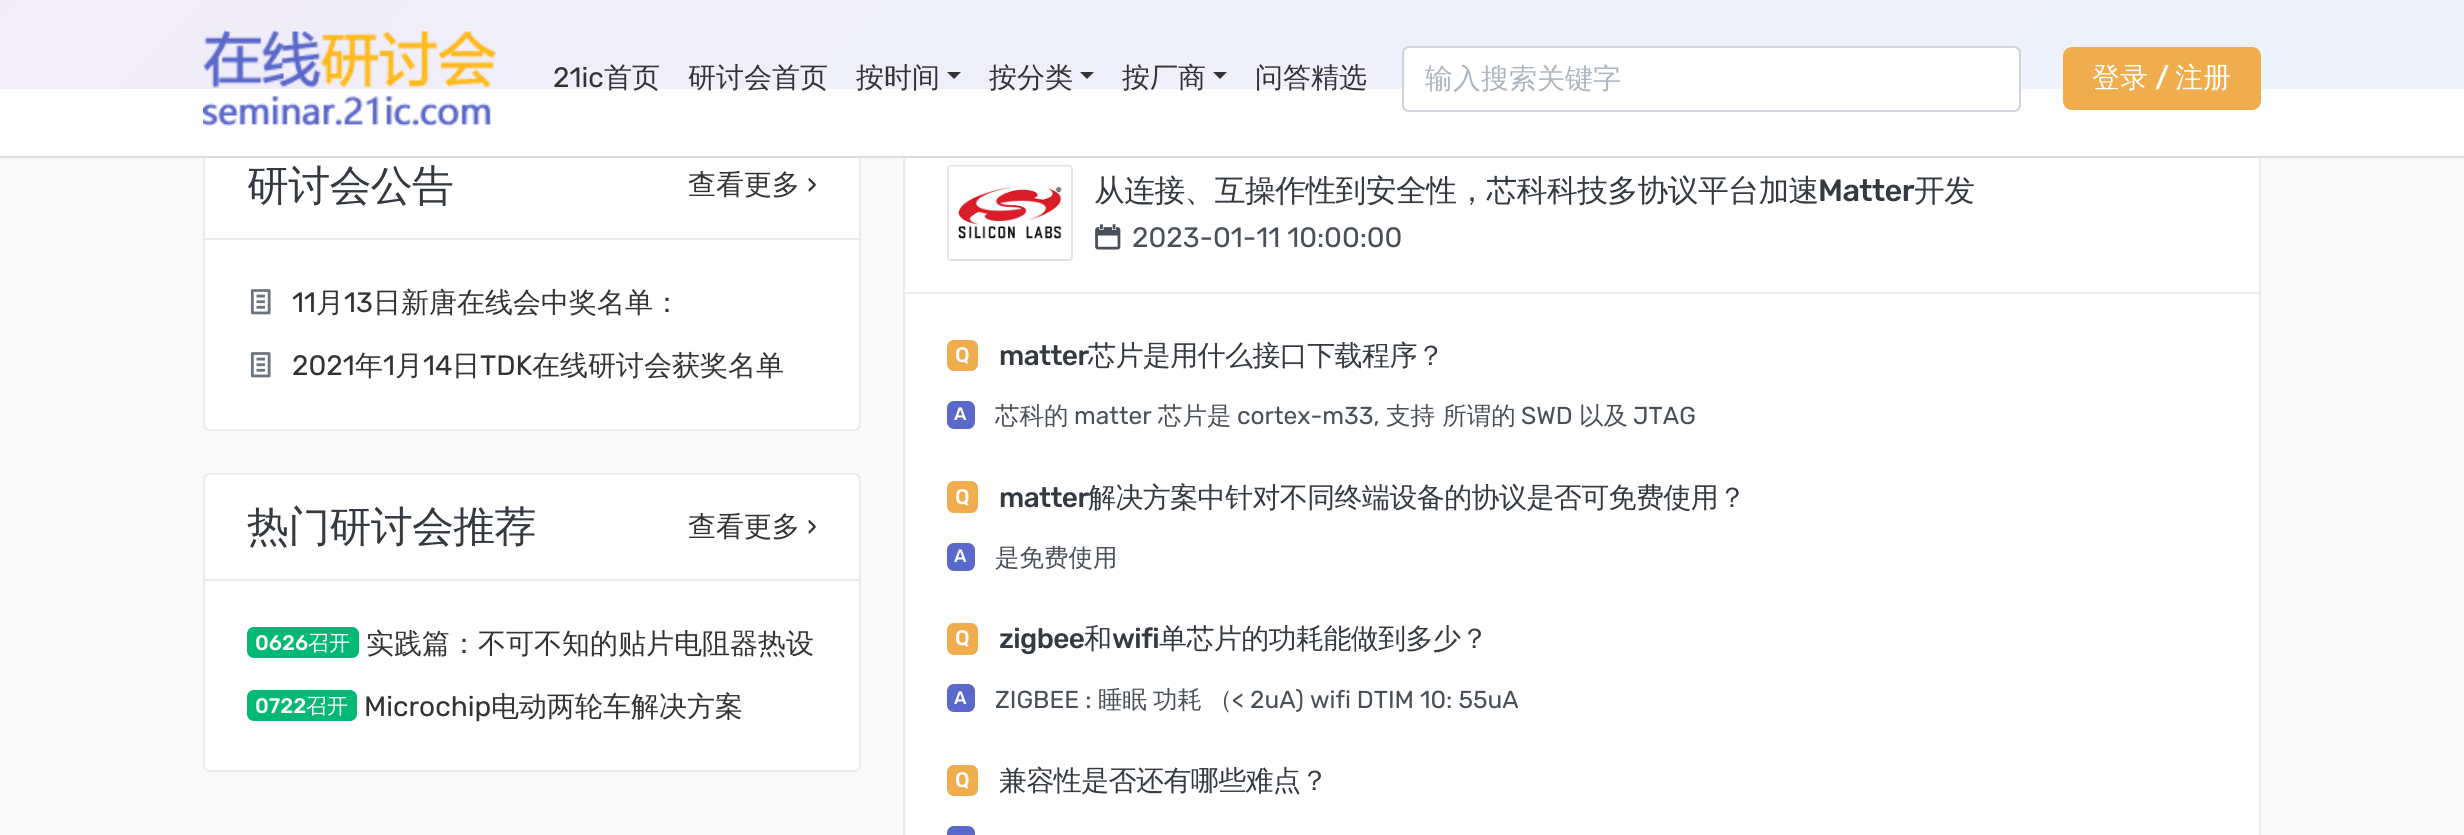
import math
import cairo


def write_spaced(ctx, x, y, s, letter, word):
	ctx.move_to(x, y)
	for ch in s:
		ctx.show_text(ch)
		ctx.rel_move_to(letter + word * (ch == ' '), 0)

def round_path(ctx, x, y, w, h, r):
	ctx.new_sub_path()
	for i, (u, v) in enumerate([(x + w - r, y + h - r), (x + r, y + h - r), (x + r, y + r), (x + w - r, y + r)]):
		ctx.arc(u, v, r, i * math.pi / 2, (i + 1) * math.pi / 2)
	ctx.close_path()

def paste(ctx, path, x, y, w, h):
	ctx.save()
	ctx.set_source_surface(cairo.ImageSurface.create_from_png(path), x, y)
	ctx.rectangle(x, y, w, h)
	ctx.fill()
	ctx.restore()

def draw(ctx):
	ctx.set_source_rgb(0.973, 0.976, 0.98)
	ctx.paint()
	gradient = cairo.LinearGradient(593, -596, 1871, 682)
	gradient.add_color_stop_rgba(0, 0.435, 0.259, 0.757, 1)
	gradient.add_color_stop_rgba(1, 0.271, 0.51, 0.925, 1)
	ctx.set_source(gradient)
	ctx.rectangle(0, 0, 2464, 89)
	ctx.fill()
	ctx.set_source_rgb(1, 1, 1)
	round_path(ctx, 204, 132, 656, 298, 6)
	ctx.fill_preserve()
	ctx.set_source_rgb(0.914, 0.925, 0.937)
	ctx.stroke()
	ctx.set_source_rgb(1, 1, 1)
	round_path(ctx, 904, 132, 1356, 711, 6)
	ctx.fill_preserve()
	ctx.set_source_rgb(0.914, 0.925, 0.937)
	ctx.stroke()
	ctx.set_source_rgba(1, 1, 1, 0.9)
	ctx.rectangle(0, 0, 2464, 156)
	ctx.fill()
	ctx.set_source_rgb(0.863, 0.863, 0.863)
	ctx.rectangle(0, 156, 2464, 2)
	ctx.fill()
	paste(ctx, 'media/1.png', 203, 29, 294, 97)
	ctx.select_font_face('Rubik')
	ctx.set_font_size(28)
	ctx.set_source_rgb(0.2, 0.2, 0.2)
	ctx.move_to(553, 87)
	ctx.show_text('21ic')
	ctx.select_font_face('WenQuanYi Zen Hei Medium')
	for x, y, s in [
		(604, 87, '首页'),
		(688, 87, '研讨会首页'),
		(856, 87, '按时间'),
	]:
		ctx.move_to(x, y)
		ctx.show_text(s)
	ctx.new_path()
	ctx.move_to(947, 72)
	ctx.line_to(961, 72)
	ctx.line_to(954, 79)
	ctx.close_path()
	ctx.fill()
	ctx.move_to(989, 87)
	ctx.show_text('按分类')
	ctx.new_path()
	ctx.move_to(1080, 72)
	ctx.line_to(1094, 72)
	ctx.line_to(1087, 79)
	ctx.close_path()
	ctx.fill()
	ctx.move_to(1122, 87)
	ctx.show_text('按厂商')
	ctx.new_path()
	ctx.move_to(1213, 72)
	ctx.line_to(1227, 72)
	ctx.line_to(1220, 79)
	ctx.close_path()
	ctx.fill()
	ctx.move_to(1255, 87)
	ctx.show_text('问答精选')
	ctx.set_source_rgb(1, 1, 1)
	round_path(ctx, 1403, 47, 617, 64, 6)
	ctx.fill_preserve()
	ctx.set_source_rgb(0.808, 0.831, 0.855)
	ctx.stroke()
	ctx.set_source_rgb(0.678, 0.71, 0.741)
	ctx.move_to(1425, 88)
	ctx.show_text('输入搜索关键字')
	ctx.set_source_rgb(0.941, 0.678, 0.306)
	round_path(ctx, 2064, 48, 196, 61, 8)
	ctx.fill_preserve()
	ctx.stroke()
	ctx.set_source_rgb(1, 1, 1)
	ctx.move_to(2092, 87)
	ctx.show_text('登录')
	ctx.select_font_face('Rubik Medium')
	ctx.move_to(2155, 87)
	ctx.show_text('/')
	ctx.select_font_face('WenQuanYi Zen Hei Medium')
	ctx.move_to(2175, 87)
	ctx.show_text('注册')
	ctx.set_source_rgb(0.914, 0.925, 0.937)
	ctx.rectangle(205, 238, 654, 2)
	ctx.fill()
	ctx.set_font_size(42)
	ctx.set_source_rgb(0.204, 0.227, 0.251)
	write_spaced(ctx, 247, 200, '研讨会公告', -0.75, 0)
	ctx.set_font_size(28)
	ctx.set_source_rgb(0.2, 0.2, 0.2)
	ctx.move_to(688, 194)
	ctx.show_text('查看更多')
	ctx.select_font_face('Rubik')
	ctx.move_to(807, 194)
	ctx.show_text('›')
	paste(ctx, 'media/2.png', 250, 289, 21, 26)
	ctx.move_to(292, 312)
	ctx.show_text('11')
	ctx.select_font_face('WenQuanYi Zen Hei Medium')
	ctx.move_to(316, 312)
	ctx.show_text('月')
	ctx.select_font_face('Rubik')
	ctx.move_to(344, 312)
	ctx.show_text('13')
	ctx.select_font_face('WenQuanYi Zen Hei Medium')
	ctx.move_to(373, 312)
	ctx.show_text('日新唐在线会中奖名单：')
	paste(ctx, 'media/2.png', 250, 352, 21, 26)
	ctx.select_font_face('Rubik')
	ctx.move_to(292, 375)
	ctx.show_text('2021')
	ctx.select_font_face('WenQuanYi Zen Hei Medium')
	ctx.move_to(355, 375)
	ctx.show_text('年')
	ctx.select_font_face('Rubik')
	ctx.move_to(383, 375)
	ctx.show_text('1')
	ctx.select_font_face('WenQuanYi Zen Hei Medium')
	ctx.move_to(395, 375)
	ctx.show_text('月')
	ctx.select_font_face('Rubik')
	ctx.move_to(423, 375)
	ctx.show_text('14')
	ctx.select_font_face('WenQuanYi Zen Hei Medium')
	ctx.move_to(452, 375)
	ctx.show_text('日')
	ctx.select_font_face('Rubik')
	ctx.move_to(480, 375)
	ctx.show_text('TDK')
	ctx.select_font_face('WenQuanYi Zen Hei Medium')
	ctx.move_to(532, 375)
	ctx.show_text('在线研讨会获奖名单')
	ctx.set_source_rgb(1, 1, 1)
	round_path(ctx, 204, 474, 656, 297, 6)
	ctx.fill_preserve()
	ctx.set_source_rgb(0.914, 0.925, 0.937)
	ctx.stroke()
	ctx.rectangle(205, 579, 654, 2)
	ctx.fill()
	ctx.set_font_size(42)
	ctx.set_source_rgb(0.204, 0.227, 0.251)
	write_spaced(ctx, 247, 541, '热门研讨会推荐', -0.75, 0)
	ctx.set_font_size(28)
	ctx.set_source_rgb(0.2, 0.2, 0.2)
	ctx.move_to(688, 536)
	ctx.show_text('查看更多')
	ctx.select_font_face('Rubik')
	ctx.move_to(807, 536)
	ctx.show_text('›')
	ctx.set_source_rgb(0.008, 0.722, 0.459)
	round_path(ctx, 247, 627, 112, 31, 7)
	ctx.fill()
	ctx.select_font_face('Rubik Medium')
	ctx.set_font_size(21)
	ctx.set_source_rgb(1, 1, 1)
	ctx.move_to(255, 650)
	ctx.show_text('0626')
	ctx.select_font_face('WenQuanYi Zen Hei Medium')
	ctx.move_to(308, 650)
	ctx.show_text('召开')
	ctx.set_font_size(28)
	ctx.set_source_rgb(0.2, 0.2, 0.2)
	ctx.move_to(366, 653)
	ctx.show_text('实践篇：不可不知的贴片电阻器热设')
	ctx.set_source_rgb(0.008, 0.722, 0.459)
	round_path(ctx, 247, 690, 110, 31, 7)
	ctx.fill()
	ctx.select_font_face('Rubik Medium')
	ctx.set_font_size(21)
	ctx.set_source_rgb(1, 1, 1)
	ctx.move_to(255, 713)
	ctx.show_text('0722')
	ctx.select_font_face('WenQuanYi Zen Hei Medium')
	ctx.move_to(306, 713)
	ctx.show_text('召开')
	ctx.select_font_face('Rubik')
	ctx.set_font_size(28)
	ctx.set_source_rgb(0.2, 0.2, 0.2)
	ctx.move_to(364, 716)
	ctx.show_text('Microchip')
	ctx.select_font_face('WenQuanYi Zen Hei Medium')
	ctx.move_to(491, 716)
	ctx.show_text('电动两轮车解决方案')
	ctx.set_source_rgb(0.914, 0.925, 0.937)
	ctx.rectangle(905, 292, 1354, 2)
	ctx.fill()
	round_path(ctx, 948, 166, 124, 94, 3)
	ctx.set_source_rgb(0.871, 0.886, 0.902)
	ctx.stroke()
	paste(ctx, 'media/3.png', 948, 166, 123, 93)
	ctx.set_font_size(30.8)
	ctx.set_source_rgb(0.204, 0.227, 0.251)
	write_spaced(ctx, 1094, 201, '从连接、互操作性到安全性，芯科科技多协议平台加速', -0.6, 0)
	ctx.select_font_face('Rubik Medium')
	write_spaced(ctx, 1818, 201, 'Matter', -0.6, 0)
	ctx.select_font_face('WenQuanYi Zen Hei Medium')
	write_spaced(ctx, 1914, 201, '开发', -0.6, 0)
	paste(ctx, 'media/4.png', 1095, 224, 26, 26)
	ctx.select_font_face('Rubik')
	ctx.set_font_size(28)
	ctx.set_source_rgb(0.286, 0.314, 0.341)
	ctx.move_to(1132, 247)
	ctx.show_text('2023-01-11 10:00:00')
	ctx.set_source_rgb(0.941, 0.678, 0.306)
	round_path(ctx, 947, 340, 31, 31, 7)
	ctx.fill()
	ctx.select_font_face('Rubik Medium')
	ctx.set_font_size(21)
	ctx.set_source_rgb(1, 1, 1)
	write_spaced(ctx, 955, 362, 'Q', -0.6, 0)
	ctx.set_font_size(28)
	ctx.set_source_rgb(0.204, 0.227, 0.251)
	write_spaced(ctx, 999, 365, 'matter', -0.6, 0)
	ctx.select_font_face('WenQuanYi Zen Hei Medium')
	write_spaced(ctx, 1088, 365, '芯片是用什么接口下载程序？', -0.6, 0)
	ctx.set_source_rgb(0.353, 0.408, 0.788)
	round_path(ctx, 947, 401, 28, 28, 7)
	ctx.fill()
	ctx.select_font_face('Rubik Medium')
	ctx.set_font_size(18)
	ctx.set_source_rgb(1, 1, 1)
	ctx.move_to(954, 420)
	ctx.show_text('A')
	ctx.select_font_face('WenQuanYi Zen Hei Medium')
	ctx.set_font_size(24.5)
	ctx.set_source_rgb(0.286, 0.314, 0.341)
	ctx.move_to(995, 424)
	ctx.show_text('芯科的')
	ctx.select_font_face('Rubik')
	ctx.move_to(1074, 424)
	ctx.show_text('matter')
	ctx.select_font_face('WenQuanYi Zen Hei Medium')
	ctx.move_to(1158, 424)
	ctx.show_text('芯片是')
	ctx.select_font_face('Rubik')
	ctx.move_to(1237, 424)
	ctx.show_text('cortex-m33,')
	ctx.select_font_face('WenQuanYi Zen Hei Medium')
	ctx.move_to(1386, 424)
	ctx.show_text('支持 所谓的')
	ctx.select_font_face('Rubik')
	ctx.move_to(1521, 424)
	ctx.show_text('SWD')
	ctx.select_font_face('WenQuanYi Zen Hei Medium')
	ctx.move_to(1579, 424)
	ctx.show_text('以及')
	ctx.select_font_face('Rubik')
	ctx.move_to(1633, 424)
	ctx.show_text('JTAG')
	ctx.set_source_rgb(0.941, 0.678, 0.306)
	round_path(ctx, 947, 481, 31, 32, 7)
	ctx.fill()
	ctx.select_font_face('Rubik Medium')
	ctx.set_font_size(21)
	ctx.set_source_rgb(1, 1, 1)
	write_spaced(ctx, 955, 504, 'Q', -0.6, 0)
	ctx.set_font_size(28)
	ctx.set_source_rgb(0.204, 0.227, 0.251)
	write_spaced(ctx, 999, 507, 'matter', -0.6, 0)
	ctx.select_font_face('WenQuanYi Zen Hei Medium')
	write_spaced(ctx, 1088, 507, '解决方案中针对不同终端设备的协议是否可免费使用？', -0.6, 0)
	ctx.set_source_rgb(0.353, 0.408, 0.788)
	round_path(ctx, 947, 543, 28, 28, 7)
	ctx.fill()
	ctx.select_font_face('Rubik Medium')
	ctx.set_font_size(18)
	ctx.set_source_rgb(1, 1, 1)
	ctx.move_to(954, 562)
	ctx.show_text('A')
	ctx.select_font_face('WenQuanYi Zen Hei Medium')
	ctx.set_font_size(24.5)
	ctx.set_source_rgb(0.286, 0.314, 0.341)
	ctx.move_to(995, 566)
	ctx.show_text('是免费使用')
	ctx.set_source_rgb(0.941, 0.678, 0.306)
	round_path(ctx, 947, 623, 31, 32, 7)
	ctx.fill()
	ctx.select_font_face('Rubik Medium')
	ctx.set_font_size(21)
	ctx.set_source_rgb(1, 1, 1)
	write_spaced(ctx, 955, 645, 'Q', -0.6, 0)
	ctx.set_font_size(28)
	ctx.set_source_rgb(0.204, 0.227, 0.251)
	write_spaced(ctx, 999, 648, 'zigbee', -0.6, 0)
	ctx.select_font_face('WenQuanYi Zen Hei Medium')
	write_spaced(ctx, 1084, 648, '和', -0.6, 0)
	ctx.select_font_face('Rubik Medium')
	write_spaced(ctx, 1112, 648, 'wifi', -0.6, 0)
	ctx.select_font_face('WenQuanYi Zen Hei Medium')
	write_spaced(ctx, 1159, 648, '单芯片的功耗能做到多少？', -0.6, 0)
	ctx.set_source_rgb(0.353, 0.408, 0.788)
	round_path(ctx, 947, 684, 28, 28, 7)
	ctx.fill()
	ctx.select_font_face('Rubik Medium')
	ctx.set_font_size(18)
	ctx.set_source_rgb(1, 1, 1)
	ctx.move_to(954, 704)
	ctx.show_text('A')
	ctx.select_font_face('Rubik')
	ctx.set_font_size(24.5)
	ctx.set_source_rgb(0.286, 0.314, 0.341)
	ctx.move_to(995, 708)
	ctx.show_text('ZIGBEE :')
	ctx.select_font_face('WenQuanYi Zen Hei Medium')
	for x, y, s in [
		(1098, 708, '睡眠'),
		(1153, 708, '功耗'),
		(1208, 708, '（'),
	]:
		ctx.move_to(x, y)
		ctx.show_text(s)
	ctx.select_font_face('Rubik')
	ctx.move_to(1232, 708)
	ctx.show_text('< 2uA) wifi DTIM 10: 55uA')
	ctx.set_source_rgb(0.941, 0.678, 0.306)
	round_path(ctx, 947, 765, 31, 31, 7)
	ctx.fill()
	ctx.select_font_face('Rubik Medium')
	ctx.set_font_size(21)
	ctx.set_source_rgb(1, 1, 1)
	write_spaced(ctx, 955, 787, 'Q', -0.6, 0)
	ctx.select_font_face('WenQuanYi Zen Hei Medium')
	ctx.set_font_size(28)
	ctx.set_source_rgb(0.204, 0.227, 0.251)
	write_spaced(ctx, 999, 790, '兼容性是否还有哪些难点？', -0.6, 0)
	ctx.set_source_rgb(0.353, 0.408, 0.788)
	round_path(ctx, 947, 826, 28, 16, 7)
	ctx.fill()


surface = cairo.ImageSurface(cairo.FORMAT_RGB24, 2464, 835)
ctx = cairo.Context(surface)
options = cairo.FontOptions()
options.set_hint_metrics(cairo.HINT_METRICS_OFF)
options.set_hint_style(cairo.HINT_STYLE_NONE)
ctx.set_font_options(options)
ctx.set_miter_limit(4)
draw(ctx)
surface.write_to_png('image.png')
